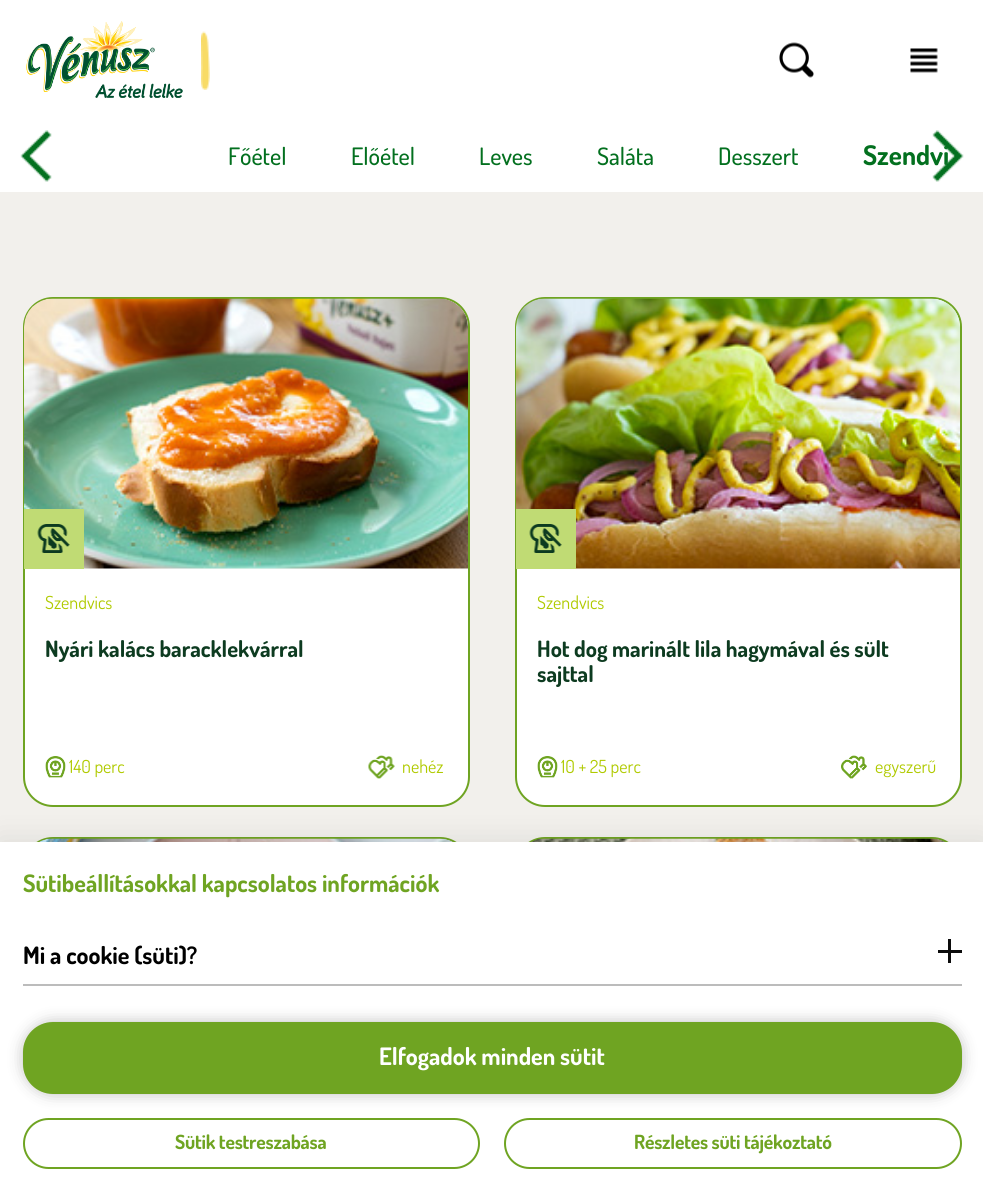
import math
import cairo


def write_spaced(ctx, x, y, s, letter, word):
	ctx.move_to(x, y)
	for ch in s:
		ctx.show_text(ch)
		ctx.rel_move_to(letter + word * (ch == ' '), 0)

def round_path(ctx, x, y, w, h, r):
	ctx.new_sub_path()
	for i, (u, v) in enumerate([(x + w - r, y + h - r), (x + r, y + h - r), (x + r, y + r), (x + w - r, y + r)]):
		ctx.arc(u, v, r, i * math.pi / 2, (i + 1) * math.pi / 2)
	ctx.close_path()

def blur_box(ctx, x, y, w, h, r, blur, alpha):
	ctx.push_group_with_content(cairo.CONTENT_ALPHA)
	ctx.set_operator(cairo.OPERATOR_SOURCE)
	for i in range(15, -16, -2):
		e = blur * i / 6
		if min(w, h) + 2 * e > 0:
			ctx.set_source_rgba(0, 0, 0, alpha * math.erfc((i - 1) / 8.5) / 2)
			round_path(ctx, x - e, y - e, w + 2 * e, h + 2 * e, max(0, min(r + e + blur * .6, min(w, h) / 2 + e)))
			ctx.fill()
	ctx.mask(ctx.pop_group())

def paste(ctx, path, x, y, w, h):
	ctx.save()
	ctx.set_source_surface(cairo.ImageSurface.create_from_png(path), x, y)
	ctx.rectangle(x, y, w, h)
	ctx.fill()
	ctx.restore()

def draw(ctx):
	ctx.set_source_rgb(0.949, 0.941, 0.922)
	ctx.paint()
	ctx.set_source_rgb(1, 1, 1)
	ctx.rectangle(0, 0, 983, 192)
	ctx.fill()
	paste(ctx, 'media/1.png', 201, 31, 9, 59)
	paste(ctx, 'media/2.png', 26, 21, 157, 77)
	paste(ctx, 'media/3.png', 779, 42, 35, 36)
	paste(ctx, 'media/4.png', 910, 48, 28, 25)
	paste(ctx, 'media/5.png', 20, 130, 32, 52)
	ctx.select_font_face('Dosis Medium')
	ctx.set_font_size(24)
	ctx.set_source_rgb(0.012, 0.439, 0.122)
	for x, y, s in [
		(228, 165, 'Főétel'),
		(351, 165, 'Előétel'),
		(479, 165, 'Leves'),
		(597, 165, 'Saláta'),
		(718, 165, 'Desszert'),
	]:
		ctx.move_to(x, y)
		ctx.show_text(s)
	ctx.select_font_face('Dosis', cairo.FONT_SLANT_NORMAL, cairo.FONT_WEIGHT_BOLD)
	ctx.set_font_size(27)
	ctx.move_to(863, 165)
	ctx.show_text('Szendvi')
	paste(ctx, 'media/6.png', 932, 130, 40, 52)
	ctx.set_source_rgb(1, 1, 1)
	round_path(ctx, 24, 298, 445, 508, 29)
	ctx.fill_preserve()
	ctx.set_source_rgb(0.435, 0.643, 0.133)
	ctx.stroke()
	paste(ctx, 'media/7.png', 24, 298, 444, 271)
	ctx.set_source_rgb(0.753, 0.859, 0.455)
	ctx.rectangle(24, 509, 60, 60)
	ctx.fill()
	paste(ctx, 'media/8.png', 37, 524, 33, 29)
	ctx.select_font_face('Dosis')
	ctx.set_font_size(18)
	ctx.set_source_rgb(0.69, 0.792, 0)
	ctx.move_to(45, 609)
	ctx.show_text('Szendvics')
	ctx.select_font_face('Dosis', cairo.FONT_SLANT_NORMAL, cairo.FONT_WEIGHT_BOLD)
	ctx.set_font_size(22.5)
	ctx.set_source_rgb(0.051, 0.231, 0.125)
	ctx.move_to(45, 657)
	ctx.show_text('Nyári kalács baracklekvárral')
	paste(ctx, 'media/9.png', 45, 756, 21, 22)
	ctx.select_font_face('Dosis')
	ctx.set_font_size(18)
	ctx.set_source_rgb(0.69, 0.792, 0)
	ctx.move_to(69, 773)
	ctx.show_text('140 perc')
	paste(ctx, 'media/10.png', 368, 755, 27, 24)
	ctx.move_to(402, 773)
	ctx.show_text('nehéz')
	ctx.set_source_rgb(1, 1, 1)
	round_path(ctx, 516, 298, 445, 508, 29)
	ctx.fill_preserve()
	ctx.set_source_rgb(0.435, 0.643, 0.133)
	ctx.stroke()
	paste(ctx, 'media/11.png', 516, 298, 444, 271)
	ctx.set_source_rgb(0.753, 0.859, 0.455)
	ctx.rectangle(516, 509, 60, 60)
	ctx.fill()
	paste(ctx, 'media/8.png', 529, 524, 33, 29)
	ctx.set_source_rgb(0.69, 0.792, 0)
	ctx.move_to(537, 609)
	ctx.show_text('Szendvics')
	ctx.select_font_face('Dosis', cairo.FONT_SLANT_NORMAL, cairo.FONT_WEIGHT_BOLD)
	ctx.set_font_size(22.5)
	ctx.set_source_rgb(0.051, 0.231, 0.125)
	ctx.move_to(537, 657)
	ctx.show_text('Hot dog marinált lila hagymával és sült')
	ctx.move_to(537, 682)
	ctx.show_text('sajttal')
	paste(ctx, 'media/9.png', 537, 756, 21, 22)
	ctx.select_font_face('Dosis')
	ctx.set_font_size(18)
	ctx.set_source_rgb(0.69, 0.792, 0)
	ctx.move_to(561, 773)
	ctx.show_text('10 + 25 perc')
	paste(ctx, 'media/12.png', 841, 755, 26, 24)
	ctx.move_to(875, 773)
	ctx.show_text('egyszerű')
	round_path(ctx, 24, 838, 445, 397, 29)
	ctx.set_source_rgb(0.435, 0.643, 0.133)
	ctx.stroke()
	paste(ctx, 'media/13.png', 39, 838, 414, 4)
	round_path(ctx, 516, 838, 445, 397, 29)
	ctx.stroke()
	paste(ctx, 'media/14.png', 531, 838, 414, 4)
	ctx.set_source_rgb(0, 0, 0)
	blur_box(ctx, 0, 842, 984, 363, 0, 15, 0.1)
	ctx.set_source_rgb(1, 1, 1)
	ctx.rectangle(0, 842, 983, 362)
	ctx.fill()
	ctx.select_font_face('Dosis', cairo.FONT_SLANT_NORMAL, cairo.FONT_WEIGHT_BOLD)
	ctx.set_font_size(24)
	ctx.set_source_rgb(0.435, 0.643, 0.133)
	ctx.move_to(23, 892)
	ctx.show_text('Sütibeállításokkal kapcsolatos információk')
	ctx.set_source_rgb(0.737, 0.737, 0.737)
	ctx.rectangle(23, 984, 939, 2)
	ctx.fill()
	ctx.set_source_rgb(0, 0, 0)
	ctx.move_to(23, 964)
	ctx.show_text('Mi a cookie (süti)?')
	ctx.set_source_rgb(0.047, 0.047, 0.047)
	ctx.rectangle(938, 950, 24, 3)
	ctx.fill()
	ctx.rectangle(948, 939, 3, 24)
	ctx.fill()
	ctx.set_source_rgb(0.098, 0.098, 0.09)
	blur_box(ctx, 23, 1022, 939, 72, 30, 7.5, 0.28)
	ctx.set_source_rgb(0.435, 0.643, 0.133)
	round_path(ctx, 24, 1023, 937, 70, 29)
	ctx.fill_preserve()
	ctx.stroke()
	ctx.set_source_rgb(1, 1, 1)
	ctx.move_to(379, 1065)
	ctx.show_text('Elfogadok minden sütit')
	round_path(ctx, 24, 1119, 455, 49, 24.5)
	ctx.set_source_rgb(0.435, 0.643, 0.133)
	ctx.stroke()
	ctx.set_font_size(19.5)
	write_spaced(ctx, 175, 1149, 'Sütik testreszabása', -0.2, 0)
	round_path(ctx, 505, 1119, 456, 49, 24.5)
	ctx.stroke()
	write_spaced(ctx, 634, 1149, 'Részletes süti tájékoztató', -0.2, 0)


surface = cairo.ImageSurface(cairo.FORMAT_RGB24, 983, 1204)
ctx = cairo.Context(surface)
options = cairo.FontOptions()
options.set_hint_metrics(cairo.HINT_METRICS_OFF)
options.set_hint_style(cairo.HINT_STYLE_NONE)
ctx.set_font_options(options)
ctx.set_miter_limit(4)
draw(ctx)
surface.write_to_png('image.png')
